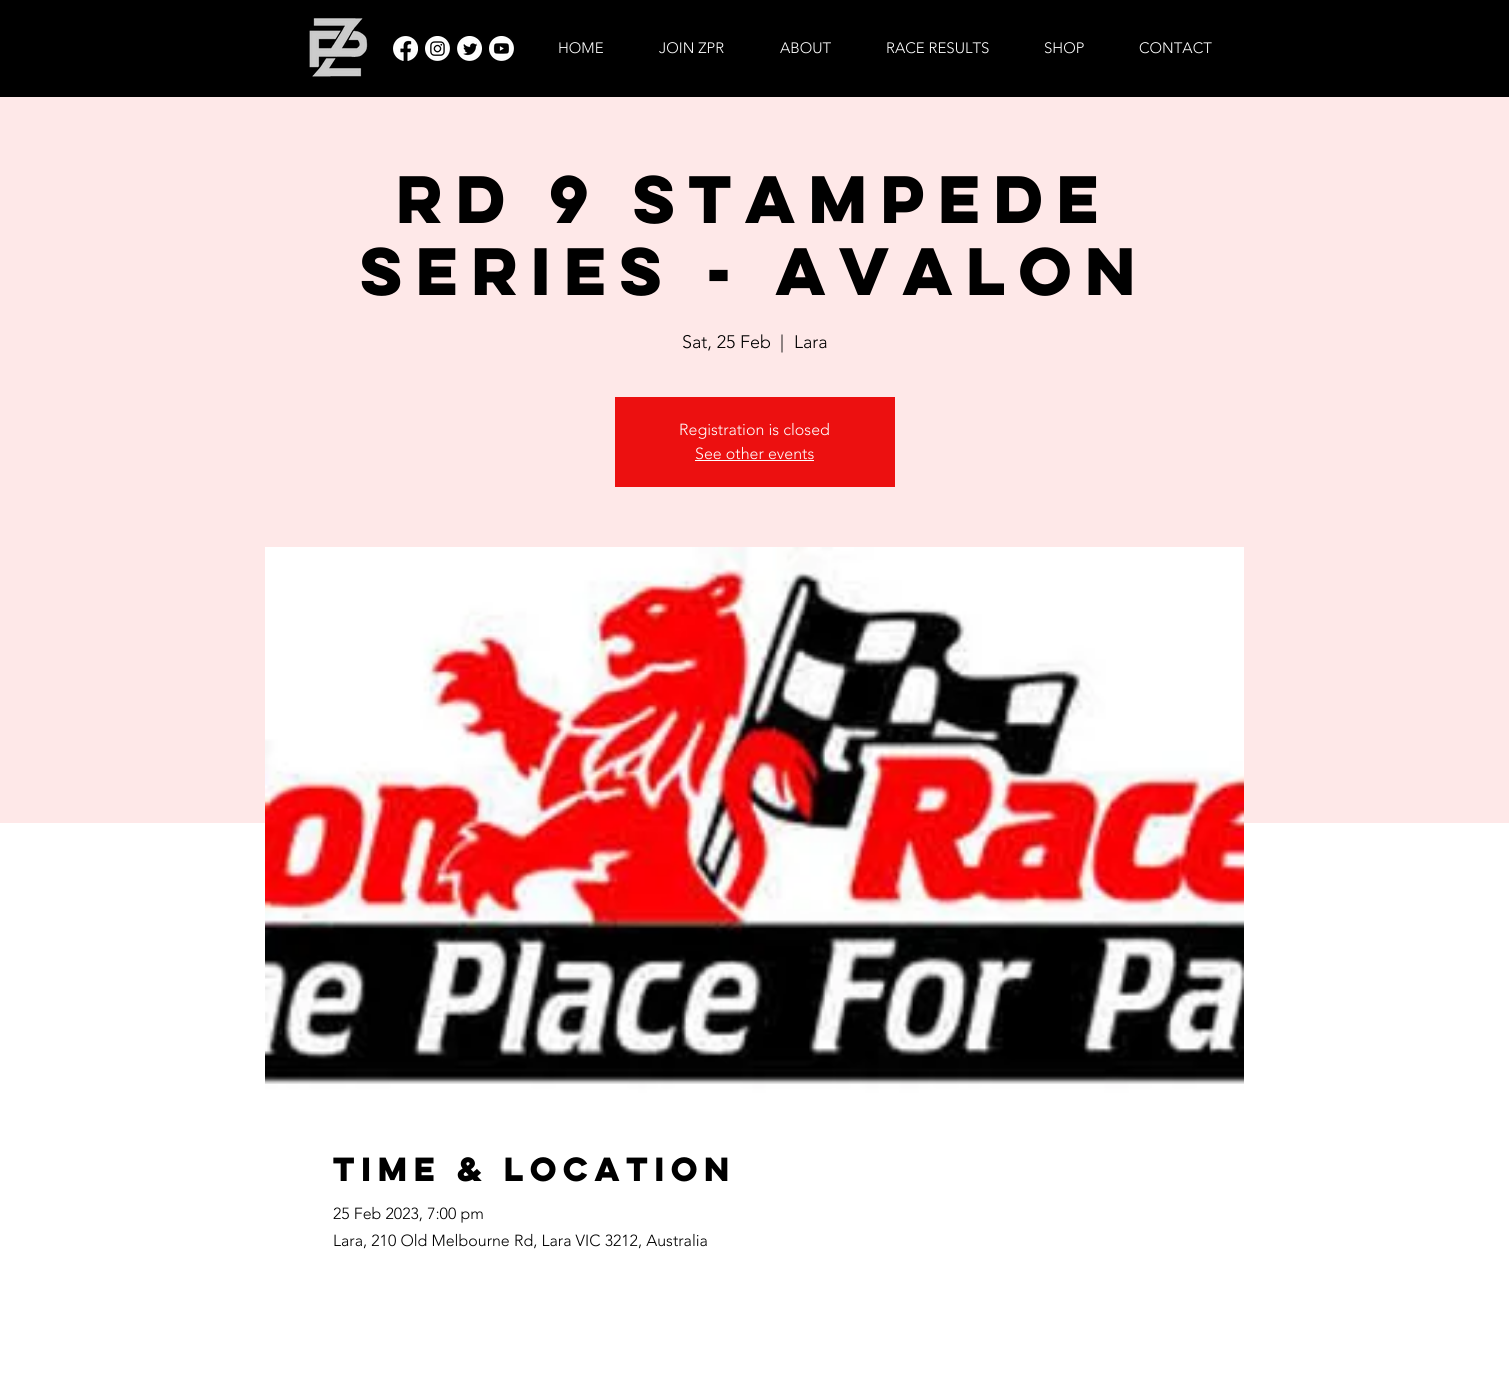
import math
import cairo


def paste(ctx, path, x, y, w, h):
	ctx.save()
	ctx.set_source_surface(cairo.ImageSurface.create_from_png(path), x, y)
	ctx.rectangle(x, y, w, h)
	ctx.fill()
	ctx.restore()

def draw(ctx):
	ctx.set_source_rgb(1, 1, 1)
	ctx.paint()
	ctx.set_source_rgb(0, 0, 0)
	ctx.rectangle(0, 0, 1509, 97)
	ctx.fill()
	paste(ctx, 'media/1.png', 309, 18, 59, 59)
	paste(ctx, 'media/2.png', 393, 36, 25, 25)
	paste(ctx, 'media/3.png', 425, 36, 25, 25)
	paste(ctx, 'media/4.png', 457, 36, 25, 25)
	paste(ctx, 'media/5.png', 489, 36, 25, 25)
	ctx.select_font_face('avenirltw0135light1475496 Light')
	ctx.set_font_size(15)
	ctx.set_source_rgb(1, 1, 1)
	for x, y, s in [
		(558, 53, 'HOME'),
		(659, 53, 'JOIN ZPR'),
		(780, 53, 'ABOUT'),
		(886, 53, 'RACE RESULTS'),
		(1044, 53, 'SHOP'),
		(1139, 53, 'CONTACT'),
	]:
		ctx.move_to(x, y)
		ctx.show_text(s)
	ctx.set_source_rgb(0.996, 0.91, 0.91)
	ctx.rectangle(0, 97, 1509, 726)
	ctx.fill()
	ctx.select_font_face('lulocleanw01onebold', cairo.FONT_SLANT_NORMAL, cairo.FONT_WEIGHT_BOLD)
	ctx.set_font_size(60)
	ctx.set_source_rgb(0, 0, 0)
	ctx.move_to(396, 223)
	ctx.show_text('Rd 9 Stampede')
	ctx.move_to(360, 295)
	ctx.show_text('Series - Avalon')
	ctx.select_font_face('avenirltw0135light1475496 Light')
	ctx.set_font_size(18)
	for x, y, s in [
		(682, 348, 'Sat, 25 Feb'),
		(780, 348, '|'),
		(794, 348, 'Lara'),
	]:
		ctx.move_to(x, y)
		ctx.show_text(s)
	ctx.set_source_rgb(0.922, 0.063, 0.063)
	ctx.rectangle(615, 397, 280, 90)
	ctx.fill()
	ctx.set_font_size(16)
	ctx.set_source_rgb(1, 1, 1)
	ctx.move_to(679, 435)
	ctx.show_text('Registration is closed')
	ctx.move_to(695, 459)
	ctx.show_text('See other events')
	ctx.rectangle(695, 460, 119, 1)
	ctx.fill()
	paste(ctx, 'media/6.png', 265, 547, 979, 552)
	ctx.select_font_face('lulocleanw01onebold', cairo.FONT_SLANT_NORMAL, cairo.FONT_WEIGHT_BOLD)
	ctx.set_font_size(30)
	ctx.set_source_rgb(0, 0, 0)
	ctx.move_to(333, 1181)
	ctx.show_text('Time & Location')
	ctx.select_font_face('avenirltw0135light1475496 Light')
	ctx.set_font_size(16)
	ctx.move_to(333, 1219)
	ctx.show_text('25 Feb 2023, 7:00 pm')
	ctx.move_to(333, 1246)
	ctx.show_text('Lara, 210 Old Melbourne Rd, Lara VIC 3212, Australia')


surface = cairo.ImageSurface(cairo.FORMAT_RGB24, 1509, 1382)
ctx = cairo.Context(surface)
options = cairo.FontOptions()
options.set_hint_metrics(cairo.HINT_METRICS_OFF)
options.set_hint_style(cairo.HINT_STYLE_NONE)
ctx.set_font_options(options)
ctx.set_miter_limit(4)
draw(ctx)
surface.write_to_png('image.png')
